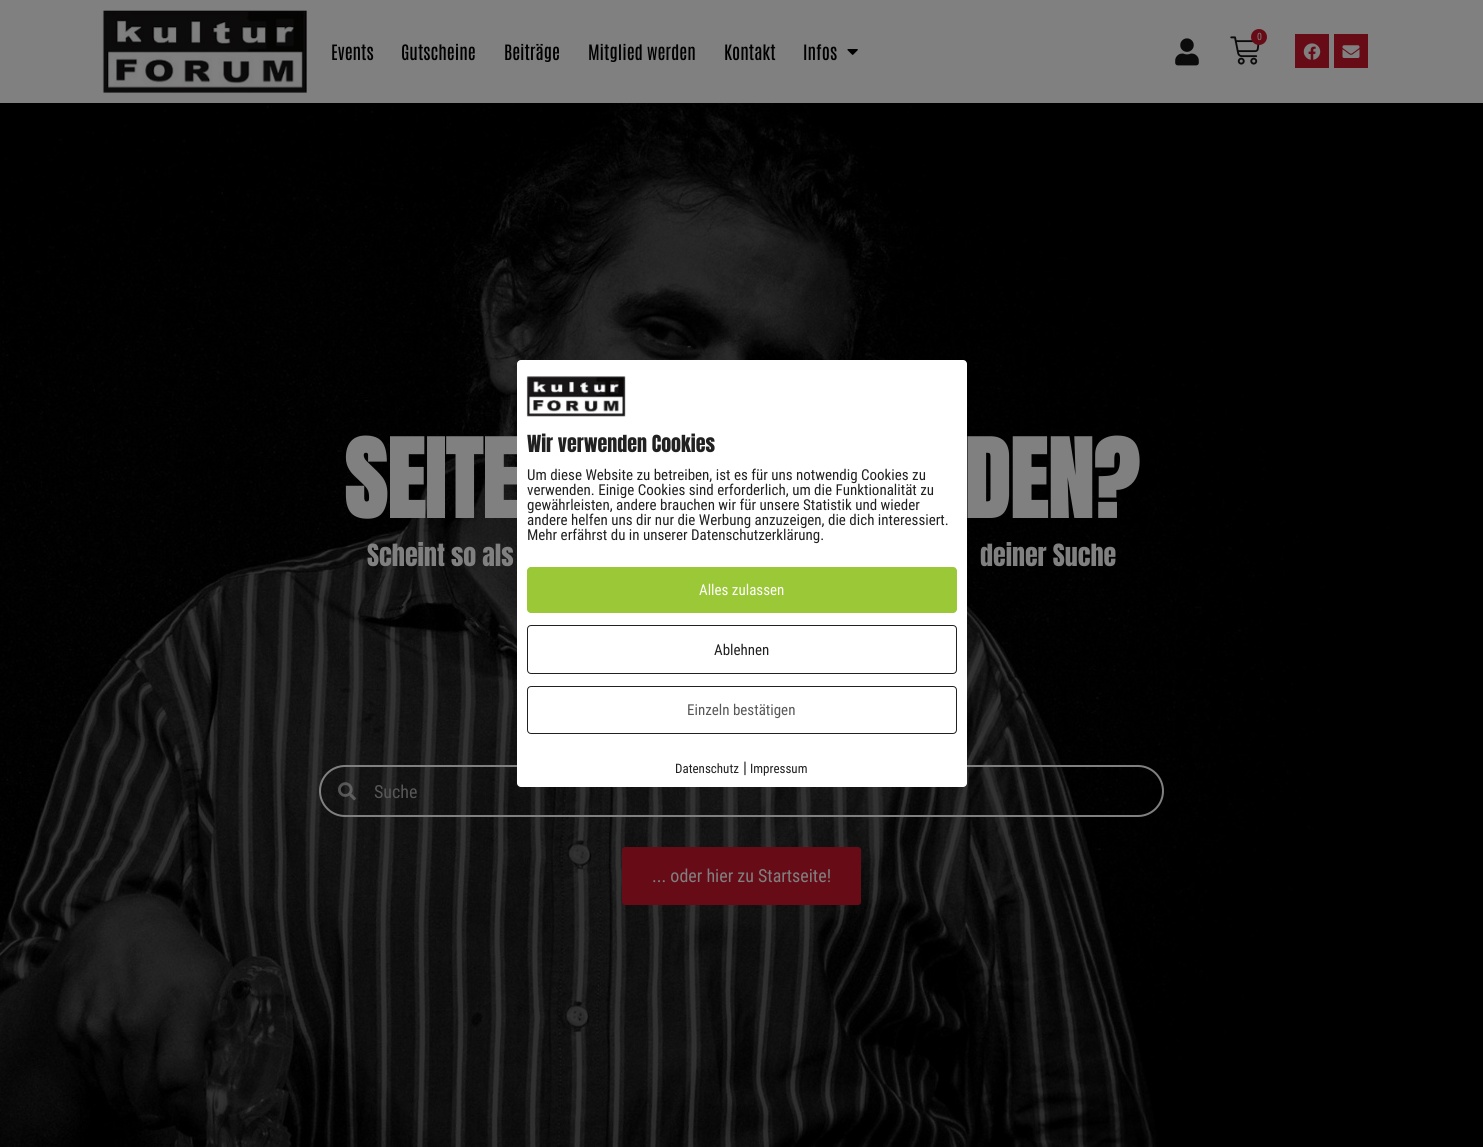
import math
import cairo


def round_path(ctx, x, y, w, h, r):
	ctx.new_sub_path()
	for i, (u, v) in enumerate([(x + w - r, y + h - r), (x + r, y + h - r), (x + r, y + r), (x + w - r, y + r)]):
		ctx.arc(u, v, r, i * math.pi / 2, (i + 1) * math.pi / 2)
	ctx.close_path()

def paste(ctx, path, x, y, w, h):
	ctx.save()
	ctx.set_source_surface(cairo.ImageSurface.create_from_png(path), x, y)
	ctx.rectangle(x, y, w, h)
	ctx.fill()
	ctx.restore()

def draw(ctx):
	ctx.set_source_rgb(0.502, 0.502, 0.502)
	ctx.paint()
	paste(ctx, 'media/1.png', 102, 10, 205, 83)
	paste(ctx, 'media/2.png', 1175, 38, 24, 28)
	paste(ctx, 'media/3.png', 1230, 36, 30, 29)
	ctx.set_source_rgb(0.404, 0.047, 0.09)
	ctx.arc(1259, 37, 8, 0, 2 * math.pi)
	ctx.fill()
	ctx.select_font_face('Roboto Condensed')
	ctx.set_font_size(10)
	ctx.set_source_rgb(0.502, 0.502, 0.502)
	ctx.move_to(1257, 40)
	ctx.show_text('0')
	ctx.set_source_rgb(0.404, 0.047, 0.09)
	ctx.rectangle(1295, 34, 34, 34)
	ctx.fill()
	paste(ctx, 'media/4.png', 1303, 43, 18, 17)
	ctx.rectangle(1334, 34, 34, 34)
	ctx.fill()
	paste(ctx, 'media/5.png', 1342, 45, 18, 13)
	ctx.select_font_face('Antonio Medium')
	ctx.set_font_size(18)
	ctx.set_source_rgb(0, 0, 0)
	for x, y, s in [
		(331, 60, 'Events'),
		(401, 60, 'Gutscheine'),
		(504, 60, 'Beiträge'),
		(588, 60, 'Mitglied werden'),
		(724, 60, 'Kontakt'),
		(803, 60, 'Infos'),
	]:
		ctx.move_to(x, y)
		ctx.show_text(s)
	paste(ctx, 'media/6.png', 847, 49, 11, 6)
	paste(ctx, 'media/8.png', 0, 103, 1483, 1044)
	ctx.select_font_face('Anton', cairo.FONT_SLANT_NORMAL, cairo.FONT_WEIGHT_BOLD)
	ctx.set_font_size(92)
	ctx.set_source_rgb(0.502, 0.502, 0.502)
	ctx.move_to(344, 518)
	ctx.show_text('SEITE')
	round_path(ctx, 320, 766, 843, 50, 25)
	ctx.stroke()
	ctx.set_source_rgb(1, 1, 1)
	round_path(ctx, 517, 360, 450, 427, 4)
	ctx.fill()
	paste(ctx, 'media/7.png', 526, 376, 100, 41)
	ctx.select_font_face('Anton')
	ctx.set_font_size(20)
	ctx.set_source_rgb(0.129, 0.129, 0.129)
	ctx.move_to(527, 452)
	ctx.show_text('Wir verwenden Cookies')
	ctx.select_font_face('Roboto Condensed')
	ctx.set_font_size(15)
	for x, y, s in [
		(527, 480, 'Um diese Website zu betreiben, ist es für uns notwendig Cookies zu'),
		(527, 495, 'verwenden. Einige Cookies sind erforderlich, um die Funktionalität zu'),
		(527, 510, 'gewährleisten, andere brauchen wir für unsere Statistik und wieder'),
		(527, 525, 'andere helfen uns dir nur die Werbung anzuzeigen, die dich interessiert.'),
		(527, 540, 'Mehr erfährst du in unserer Datenschutzerklärung.'),
	]:
		ctx.move_to(x, y)
		ctx.show_text(s)
	ctx.set_source_rgb(0.604, 0.784, 0.212)
	round_path(ctx, 527, 567, 430, 46, 4)
	ctx.fill()
	ctx.set_source_rgb(1, 1, 1)
	ctx.move_to(699, 595)
	ctx.show_text('Alles zulassen')
	round_path(ctx, 527.5, 625.5, 429, 48, 3.5)
	ctx.set_source_rgb(0.129, 0.129, 0.129)
	ctx.set_line_width(1)
	ctx.stroke()
	ctx.move_to(714, 655)
	ctx.show_text('Ablehnen')
	round_path(ctx, 527.5, 686.5, 429, 47, 3.5)
	ctx.stroke()
	ctx.set_source_rgb(0.341, 0.341, 0.341)
	ctx.move_to(687, 715)
	ctx.show_text('Einzeln bestätigen')
	ctx.set_font_size(13)
	ctx.set_source_rgb(0.129, 0.129, 0.129)
	ctx.move_to(675, 773)
	ctx.show_text('Datenschutz')
	ctx.set_font_size(16)
	ctx.move_to(743, 773)
	ctx.show_text('|')
	ctx.set_font_size(13)
	ctx.move_to(750, 773)
	ctx.show_text('Impressum')
	ctx.select_font_face('Anton', cairo.FONT_SLANT_NORMAL, cairo.FONT_WEIGHT_BOLD)
	ctx.set_font_size(92)
	ctx.set_source_rgb(0.502, 0.502, 0.502)
	ctx.move_to(964, 518)
	ctx.show_text('DEN?')
	ctx.select_font_face('Anton')
	ctx.set_font_size(26)
	ctx.move_to(367, 566)
	ctx.show_text('Scheint so als')
	ctx.move_to(980, 566)
	ctx.show_text('deiner Suche')
	paste(ctx, 'media/9.png', 338, 782, 18, 19)
	ctx.select_font_face('Roboto Condensed')
	ctx.set_font_size(18)
	ctx.set_source_rgb(0.341, 0.341, 0.341)
	ctx.move_to(374, 798)
	ctx.show_text('Suche')
	ctx.set_source_rgb(0.404, 0.047, 0.09)
	round_path(ctx, 622, 847, 239, 58, 3)
	ctx.fill()
	ctx.set_source_rgb(0.502, 0.502, 0.502)
	ctx.move_to(652, 882)
	ctx.show_text('... oder hier zu Startseite!')


surface = cairo.ImageSurface(cairo.FORMAT_RGB24, 1483, 1147)
ctx = cairo.Context(surface)
options = cairo.FontOptions()
options.set_hint_metrics(cairo.HINT_METRICS_OFF)
options.set_hint_style(cairo.HINT_STYLE_NONE)
ctx.set_font_options(options)
ctx.set_miter_limit(4)
draw(ctx)
surface.write_to_png('image.png')
